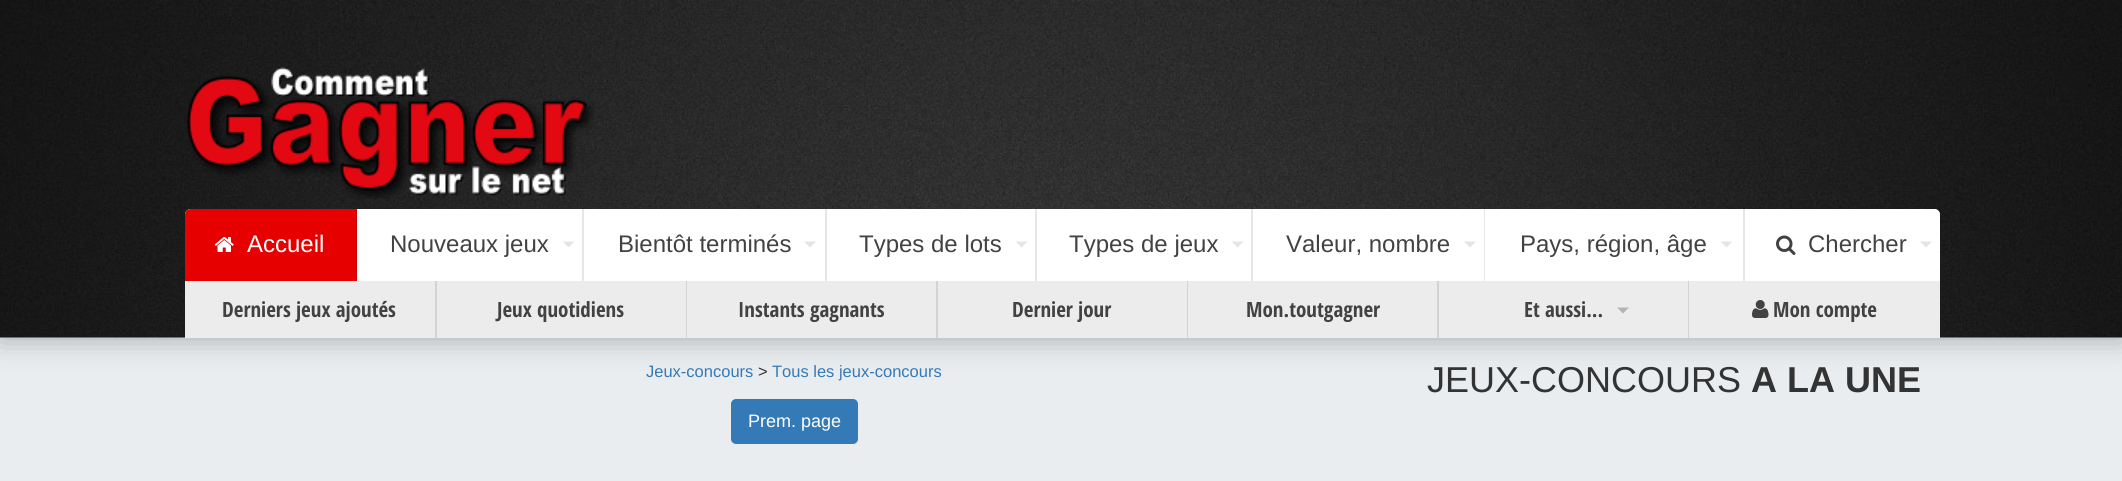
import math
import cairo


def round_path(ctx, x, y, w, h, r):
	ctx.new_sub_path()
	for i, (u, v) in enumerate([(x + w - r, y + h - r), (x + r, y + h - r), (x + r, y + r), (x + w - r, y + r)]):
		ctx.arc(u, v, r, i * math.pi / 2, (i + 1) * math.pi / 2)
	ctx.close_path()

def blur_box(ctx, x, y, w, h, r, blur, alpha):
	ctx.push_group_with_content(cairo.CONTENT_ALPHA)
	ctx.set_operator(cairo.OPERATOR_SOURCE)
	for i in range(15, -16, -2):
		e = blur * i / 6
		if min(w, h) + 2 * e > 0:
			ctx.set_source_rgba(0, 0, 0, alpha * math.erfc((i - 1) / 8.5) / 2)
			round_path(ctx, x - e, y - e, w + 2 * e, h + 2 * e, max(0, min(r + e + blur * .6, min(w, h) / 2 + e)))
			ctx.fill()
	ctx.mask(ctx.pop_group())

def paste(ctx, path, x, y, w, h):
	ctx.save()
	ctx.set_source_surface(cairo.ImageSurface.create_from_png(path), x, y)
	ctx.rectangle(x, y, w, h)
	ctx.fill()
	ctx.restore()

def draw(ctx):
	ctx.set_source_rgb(0.914, 0.929, 0.941)
	ctx.paint()
	ctx.set_source_rgb(0, 0, 0)
	blur_box(ctx, 0, 0, 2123, 338, 0, 15, 0.3)
	paste(ctx, 'media/1.png', 0, 0, 2122, 338)
	paste(ctx, 'media/2.png', 187, 67, 407, 132)
	ctx.set_source_rgb(1, 1, 1)
	ctx.new_path()
	ctx.move_to(191, 209)
	ctx.line_to(1934, 209)
	ctx.curve_to(1937.5, 209, 1940, 211.5, 1940, 215)
	ctx.line_to(1940, 281)
	ctx.line_to(185, 281)
	ctx.line_to(185, 215)
	ctx.curve_to(185, 211.5, 187.5, 209, 191, 209)
	ctx.close_path()
	ctx.fill()
	ctx.set_source_rgb(0.902, 0, 0)
	ctx.new_path()
	ctx.move_to(191, 209)
	ctx.line_to(357, 209)
	ctx.line_to(357, 281)
	ctx.line_to(185, 281)
	ctx.line_to(185, 215)
	ctx.curve_to(185, 211.5, 187.5, 209, 191, 209)
	ctx.close_path()
	ctx.fill()
	ctx.set_source_rgba(0, 0, 0, 0.1)
	ctx.rectangle(356, 209, 1, 72)
	ctx.fill()
	paste(ctx, 'media/3.png', 214, 237, 20, 15)
	ctx.select_font_face('Liberation Sans')
	ctx.set_font_size(24)
	ctx.set_source_rgb(1, 1, 1)
	ctx.move_to(247, 252)
	ctx.show_text('Accueil')
	ctx.set_source_rgb(0.902, 0.902, 0.902)
	ctx.rectangle(582, 209, 2, 72)
	ctx.fill()
	ctx.set_source_rgb(0.259, 0.259, 0.259)
	ctx.move_to(390, 252)
	ctx.show_text('Nouveaux jeux')
	ctx.set_source_rgb(0.898, 0.898, 0.898)
	ctx.new_path()
	ctx.move_to(562.5, 241.5)
	ctx.line_to(574.5, 241.5)
	ctx.line_to(568.5, 247.5)
	ctx.close_path()
	ctx.fill()
	ctx.set_source_rgb(0.902, 0.902, 0.902)
	ctx.rectangle(825, 209, 2, 72)
	ctx.fill()
	ctx.set_source_rgb(0.259, 0.259, 0.259)
	ctx.move_to(618, 252)
	ctx.show_text('Bientôt terminés')
	ctx.set_source_rgb(0.898, 0.898, 0.898)
	ctx.new_path()
	ctx.move_to(804, 241.5)
	ctx.line_to(816, 241.5)
	ctx.line_to(810, 247.5)
	ctx.close_path()
	ctx.fill()
	ctx.set_source_rgb(0.902, 0.902, 0.902)
	ctx.rectangle(1035, 209, 2, 72)
	ctx.fill()
	ctx.set_source_rgb(0.259, 0.259, 0.259)
	ctx.move_to(859, 252)
	ctx.show_text('Types de lots')
	ctx.set_source_rgb(0.898, 0.898, 0.898)
	ctx.new_path()
	ctx.move_to(1015.5, 241.5)
	ctx.line_to(1027.5, 241.5)
	ctx.line_to(1021.5, 247.5)
	ctx.close_path()
	ctx.fill()
	ctx.set_source_rgb(0.902, 0.902, 0.902)
	ctx.rectangle(1251, 209, 2, 72)
	ctx.fill()
	ctx.set_source_rgb(0.259, 0.259, 0.259)
	ctx.move_to(1069, 252)
	ctx.show_text('Types de jeux')
	ctx.set_source_rgb(0.898, 0.898, 0.898)
	ctx.new_path()
	ctx.move_to(1231.5, 241.5)
	ctx.line_to(1243.5, 241.5)
	ctx.line_to(1237.5, 247.5)
	ctx.close_path()
	ctx.fill()
	ctx.set_source_rgb(0.902, 0.902, 0.902)
	ctx.rectangle(1484, 209, 1, 72)
	ctx.fill()
	ctx.set_source_rgb(0.259, 0.259, 0.259)
	ctx.move_to(1286, 252)
	ctx.show_text('Valeur, nombre')
	ctx.set_source_rgb(0.898, 0.898, 0.898)
	ctx.new_path()
	ctx.move_to(1464, 241.5)
	ctx.line_to(1476, 241.5)
	ctx.line_to(1470, 247.5)
	ctx.close_path()
	ctx.fill()
	ctx.set_source_rgb(0.902, 0.902, 0.902)
	ctx.rectangle(1743, 209, 2, 72)
	ctx.fill()
	ctx.set_source_rgb(0.259, 0.259, 0.259)
	ctx.move_to(1520, 252)
	ctx.show_text('Pays, région, âge')
	ctx.set_source_rgb(0.898, 0.898, 0.898)
	ctx.new_path()
	ctx.move_to(1720.5, 241.5)
	ctx.line_to(1732.5, 241.5)
	ctx.line_to(1726.5, 247.5)
	ctx.close_path()
	ctx.fill()
	ctx.set_source_rgb(1, 1, 1)
	ctx.new_path()
	ctx.move_to(1745, 209)
	ctx.line_to(1934, 209)
	ctx.curve_to(1937.5, 209, 1940, 211.5, 1940, 215)
	ctx.line_to(1940, 281)
	ctx.line_to(1745, 281)
	ctx.close_path()
	ctx.fill()
	paste(ctx, 'media/4.png', 1776, 235, 20, 20)
	ctx.set_source_rgb(0.259, 0.259, 0.259)
	ctx.move_to(1808, 252)
	ctx.show_text('Chercher')
	ctx.set_source_rgb(0.898, 0.898, 0.898)
	ctx.new_path()
	ctx.move_to(1920, 241.5)
	ctx.line_to(1932, 241.5)
	ctx.line_to(1926, 247.5)
	ctx.close_path()
	ctx.fill()
	ctx.set_source_rgb(0.922, 0.922, 0.922)
	ctx.rectangle(185, 281, 250, 57)
	ctx.fill()
	ctx.select_font_face('Open Sans Condensed', cairo.FONT_SLANT_NORMAL, cairo.FONT_WEIGHT_BOLD)
	ctx.set_font_size(21)
	ctx.set_source_rgb(0.259, 0.259, 0.259)
	ctx.move_to(222, 317)
	ctx.show_text('Derniers jeux ajoutés')
	ctx.set_source_rgb(0.827, 0.827, 0.827)
	ctx.rectangle(435, 281, 2, 57)
	ctx.fill()
	ctx.set_source_rgb(0.922, 0.922, 0.922)
	ctx.rectangle(437, 281, 249, 57)
	ctx.fill()
	ctx.set_source_rgb(0.259, 0.259, 0.259)
	ctx.move_to(497, 317)
	ctx.show_text('Jeux quotidiens')
	ctx.set_source_rgb(0.827, 0.827, 0.827)
	ctx.rectangle(686, 281, 1, 57)
	ctx.fill()
	ctx.set_source_rgb(0.922, 0.922, 0.922)
	ctx.rectangle(687, 281, 249, 57)
	ctx.fill()
	ctx.set_source_rgb(0.259, 0.259, 0.259)
	ctx.move_to(738, 317)
	ctx.show_text('Instants gagnants')
	ctx.set_source_rgb(0.827, 0.827, 0.827)
	ctx.rectangle(936, 281, 2, 57)
	ctx.fill()
	ctx.set_source_rgb(0.922, 0.922, 0.922)
	ctx.rectangle(938, 281, 249, 57)
	ctx.fill()
	ctx.set_source_rgb(0.259, 0.259, 0.259)
	ctx.move_to(1012, 317)
	ctx.show_text('Dernier jour')
	ctx.set_source_rgb(0.827, 0.827, 0.827)
	ctx.rectangle(1187, 281, 1, 57)
	ctx.fill()
	ctx.set_source_rgb(0.922, 0.922, 0.922)
	ctx.rectangle(1188, 281, 249, 57)
	ctx.fill()
	ctx.set_source_rgb(0.259, 0.259, 0.259)
	ctx.move_to(1246, 317)
	ctx.show_text('Mon.toutgagner')
	ctx.set_source_rgb(0.827, 0.827, 0.827)
	ctx.rectangle(1437, 281, 2, 57)
	ctx.fill()
	ctx.set_source_rgb(0.922, 0.922, 0.922)
	ctx.rectangle(1439, 281, 249, 57)
	ctx.fill()
	ctx.set_source_rgb(0.259, 0.259, 0.259)
	ctx.move_to(1524, 317)
	ctx.show_text('Et aussi...')
	ctx.set_source_rgb(0.702, 0.702, 0.702)
	ctx.new_path()
	ctx.move_to(1617, 307.5)
	ctx.line_to(1629, 307.5)
	ctx.line_to(1623, 313.5)
	ctx.close_path()
	ctx.fill()
	ctx.set_source_rgb(0.827, 0.827, 0.827)
	ctx.rectangle(1688, 281, 1, 57)
	ctx.fill()
	ctx.set_source_rgb(0.922, 0.922, 0.922)
	ctx.rectangle(1689, 281, 251, 57)
	ctx.fill()
	paste(ctx, 'media/5.png', 1752, 300, 17, 18)
	ctx.set_source_rgb(0.259, 0.259, 0.259)
	ctx.move_to(1773, 317)
	ctx.show_text('Mon compte')
	ctx.select_font_face('Liberation Sans')
	ctx.set_font_size(16.5)
	ctx.set_source_rgb(0.2, 0.478, 0.718)
	ctx.move_to(646, 377)
	ctx.show_text('Jeux-concours')
	ctx.set_source_rgb(0.2, 0.2, 0.2)
	ctx.move_to(758, 377)
	ctx.show_text('>')
	ctx.set_source_rgb(0.2, 0.478, 0.718)
	ctx.move_to(772, 377)
	ctx.show_text('Tous les jeux-concours')
	round_path(ctx, 732, 400, 125, 43, 4)
	ctx.fill_preserve()
	ctx.stroke()
	ctx.set_font_size(18)
	ctx.set_source_rgb(1, 1, 1)
	ctx.move_to(748, 427)
	ctx.show_text('Prem. page')
	ctx.set_font_size(36)
	ctx.set_source_rgb(0.2, 0.2, 0.2)
	ctx.move_to(1427, 392)
	ctx.show_text('JEUX-CONCOURS')
	ctx.select_font_face('Liberation Sans', cairo.FONT_SLANT_NORMAL, cairo.FONT_WEIGHT_BOLD)
	ctx.move_to(1751, 392)
	ctx.show_text('A LA UNE')


surface = cairo.ImageSurface(cairo.FORMAT_RGB24, 2122, 481)
ctx = cairo.Context(surface)
options = cairo.FontOptions()
options.set_hint_metrics(cairo.HINT_METRICS_OFF)
options.set_hint_style(cairo.HINT_STYLE_NONE)
ctx.set_font_options(options)
ctx.set_miter_limit(4)
draw(ctx)
surface.write_to_png('image.png')
